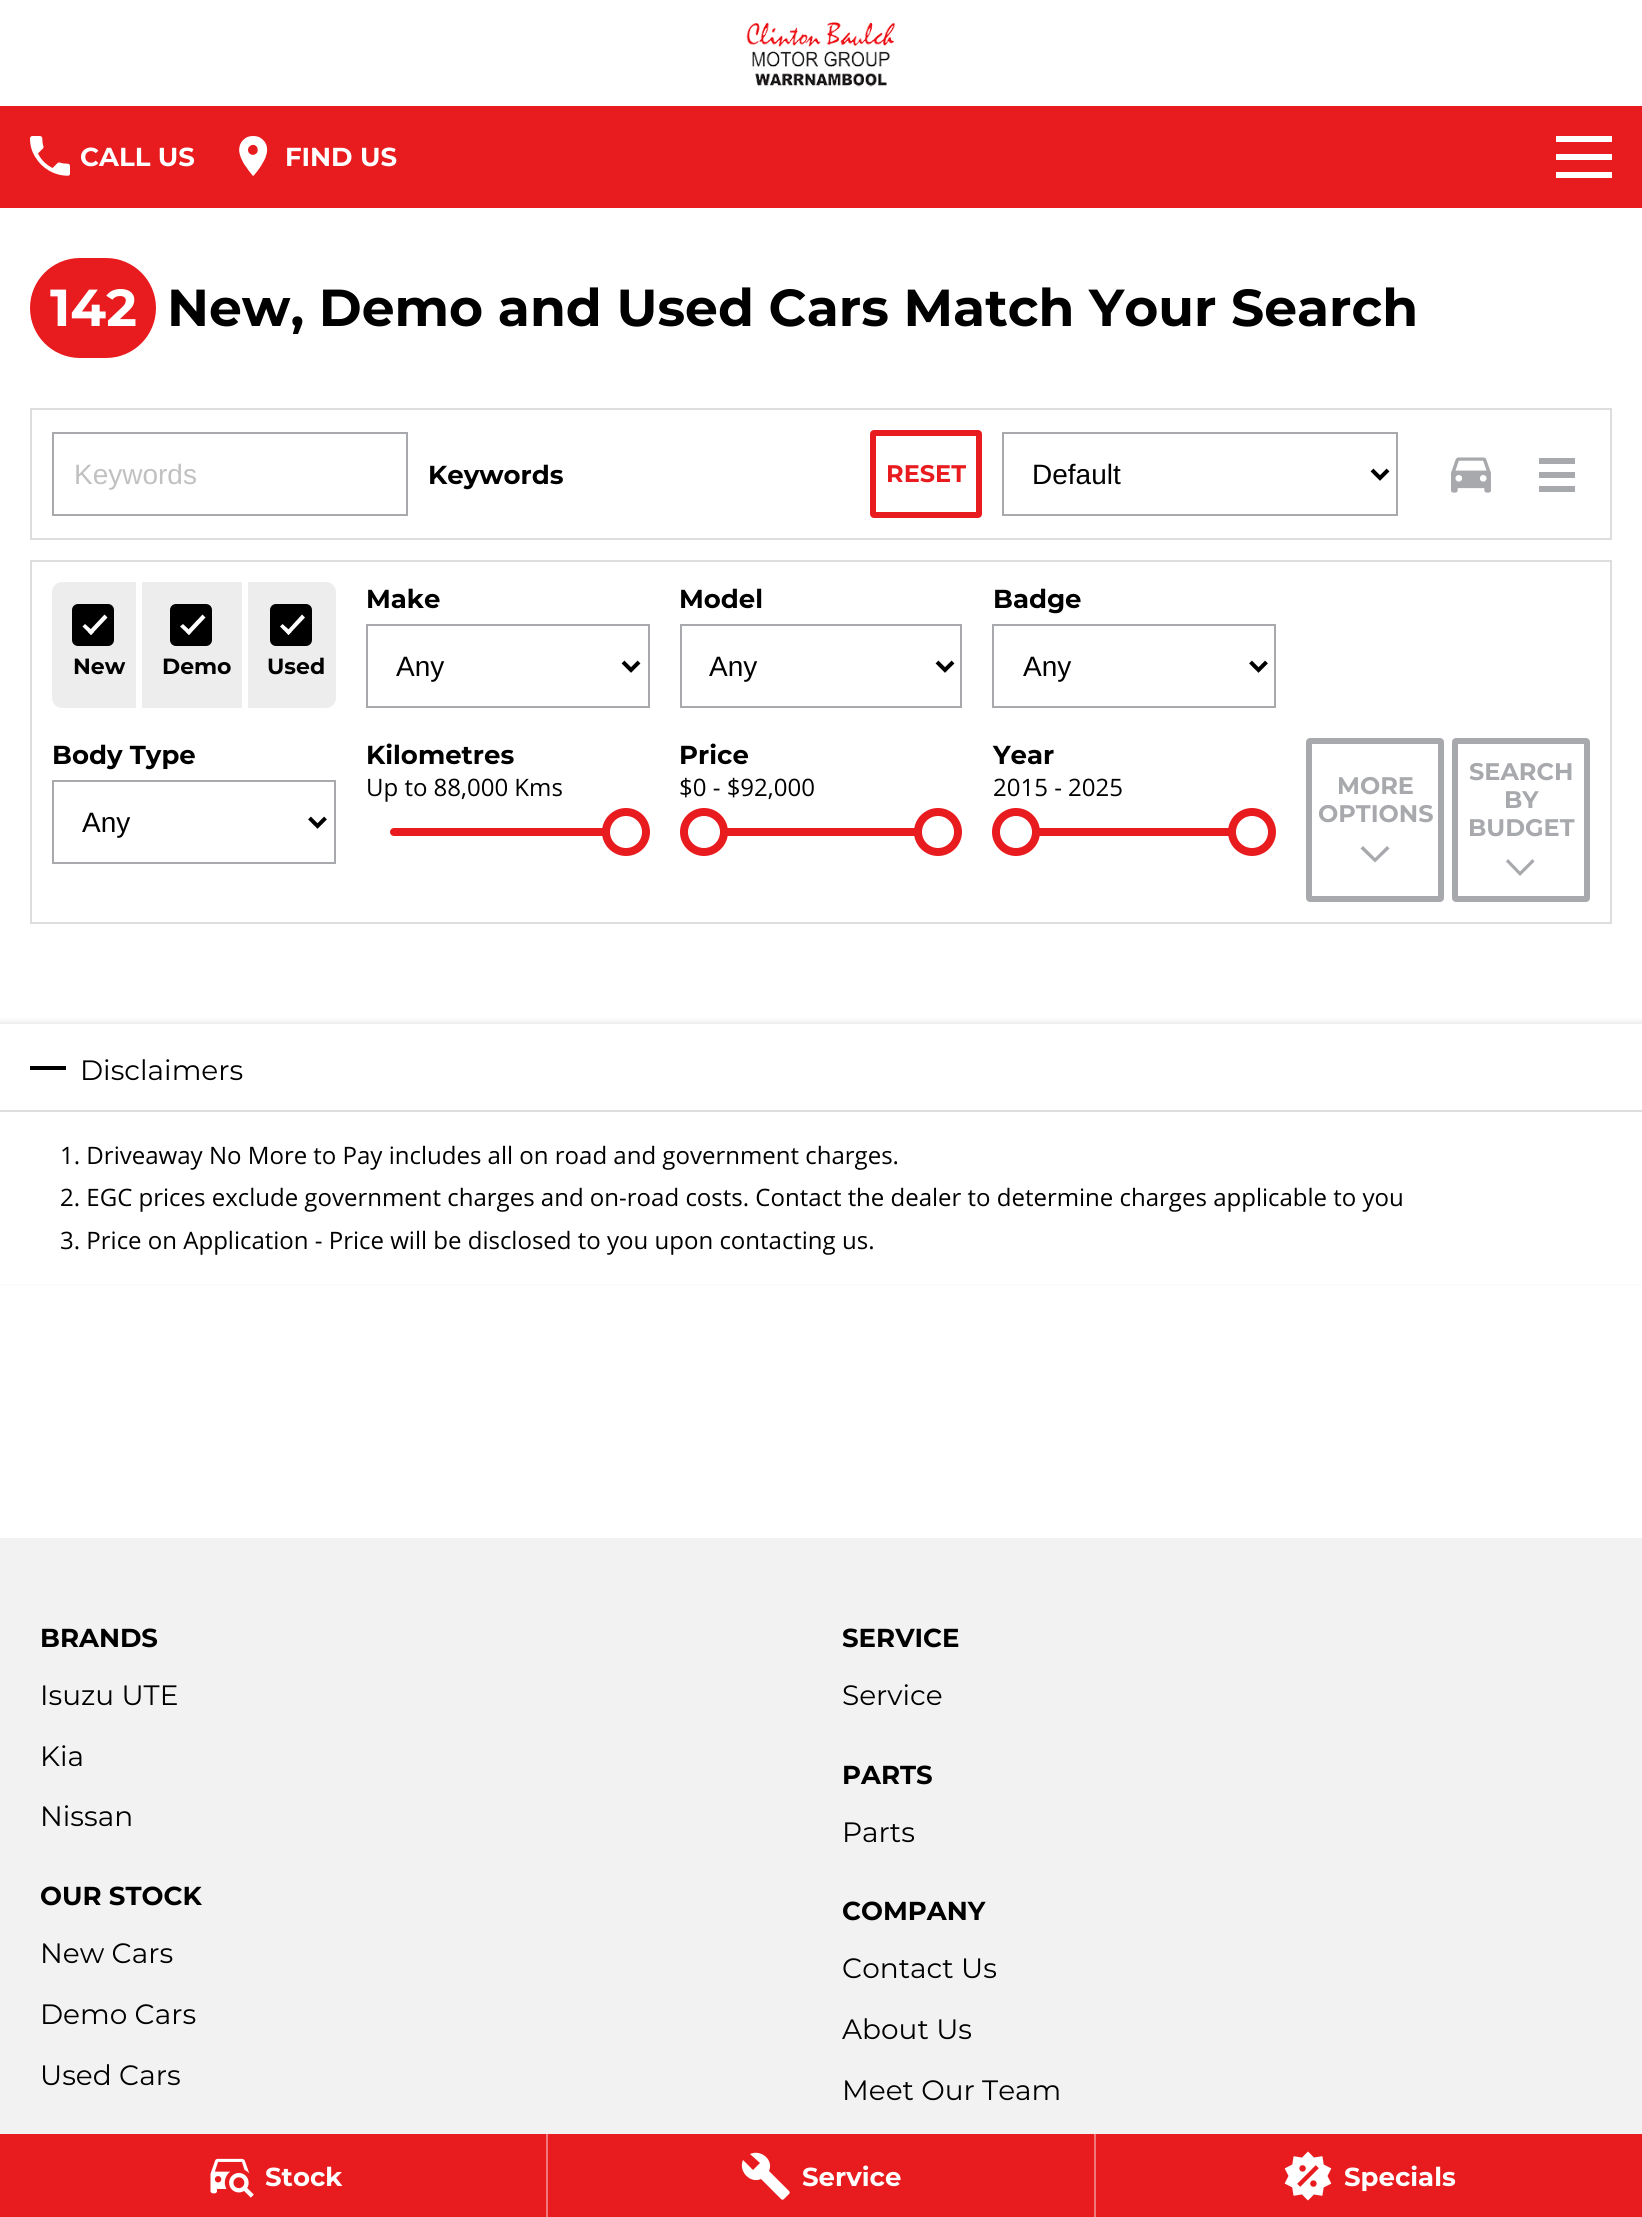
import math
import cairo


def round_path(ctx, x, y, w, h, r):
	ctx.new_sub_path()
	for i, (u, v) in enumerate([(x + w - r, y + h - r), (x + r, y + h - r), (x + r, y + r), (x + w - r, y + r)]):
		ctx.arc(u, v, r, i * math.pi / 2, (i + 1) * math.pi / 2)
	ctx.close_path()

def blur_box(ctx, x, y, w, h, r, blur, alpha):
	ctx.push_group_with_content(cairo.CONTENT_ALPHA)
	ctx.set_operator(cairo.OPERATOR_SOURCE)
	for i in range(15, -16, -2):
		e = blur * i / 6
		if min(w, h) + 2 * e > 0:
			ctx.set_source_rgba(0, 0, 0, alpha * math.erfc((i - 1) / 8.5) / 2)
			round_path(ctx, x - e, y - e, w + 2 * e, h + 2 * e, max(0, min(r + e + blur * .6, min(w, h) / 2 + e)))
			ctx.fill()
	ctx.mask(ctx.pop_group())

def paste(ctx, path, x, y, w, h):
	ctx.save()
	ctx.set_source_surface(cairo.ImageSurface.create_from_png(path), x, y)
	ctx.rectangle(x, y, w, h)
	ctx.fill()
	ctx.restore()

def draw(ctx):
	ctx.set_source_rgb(1, 1, 1)
	ctx.paint()
	paste(ctx, 'media/1.png', 746, 22, 150, 65)
	ctx.set_source_rgb(0.91, 0.106, 0.122)
	ctx.rectangle(0, 106, 1642, 102)
	ctx.fill()
	paste(ctx, 'media/2.png', 30, 136, 40, 40)
	ctx.select_font_face('Montserrat', cairo.FONT_SLANT_NORMAL, cairo.FONT_WEIGHT_BOLD)
	ctx.set_font_size(26)
	ctx.set_source_rgb(1, 1, 1)
	ctx.move_to(80, 166)
	ctx.show_text('CALL US')
	paste(ctx, 'media/3.png', 239, 136, 29, 40)
	ctx.move_to(285, 166)
	ctx.show_text('FIND US')
	ctx.rectangle(1556, 136, 56, 6)
	ctx.rectangle(1556, 154, 56, 6)
	ctx.rectangle(1556, 172, 56, 6)
	ctx.fill()
	ctx.set_source_rgb(0.91, 0.106, 0.122)
	round_path(ctx, 30, 258, 126, 100, 50)
	ctx.fill()
	ctx.set_font_size(52)
	ctx.set_source_rgb(1, 1, 1)
	ctx.move_to(50, 326)
	ctx.show_text('142')
	ctx.set_source_rgb(0, 0, 0)
	ctx.move_to(167, 326)
	ctx.show_text('New, Demo and Used Cars Match Your Search')
	ctx.rectangle(31, 409, 1580, 130)
	ctx.set_source_rgb(0.863, 0.867, 0.871)
	ctx.stroke()
	ctx.rectangle(53, 433, 354, 82)
	ctx.set_source_rgb(0.655, 0.663, 0.675)
	ctx.stroke()
	ctx.select_font_face('Liberation Sans')
	ctx.set_font_size(28)
	ctx.set_source_rgb(0.757, 0.757, 0.757)
	ctx.move_to(74, 484)
	ctx.show_text('Keywords')
	ctx.select_font_face('Montserrat', cairo.FONT_SLANT_NORMAL, cairo.FONT_WEIGHT_BOLD)
	ctx.set_font_size(26)
	ctx.set_source_rgb(0, 0, 0)
	ctx.move_to(428, 484)
	ctx.show_text('Keywords')
	round_path(ctx, 873, 433, 106, 82, 1)
	ctx.set_source_rgb(0.91, 0.106, 0.122)
	ctx.set_line_width(6)
	ctx.stroke()
	ctx.set_font_size(24)
	ctx.move_to(886, 482)
	ctx.show_text('RESET')
	ctx.rectangle(1003, 433, 394, 82)
	ctx.set_source_rgb(0.655, 0.663, 0.675)
	ctx.set_line_width(2)
	ctx.stroke()
	ctx.new_path()
	ctx.move_to(1372, 470)
	ctx.line_to(1380, 478)
	ctx.line_to(1388, 470)
	ctx.set_source_rgb(0, 0, 0)
	ctx.set_line_width(4)
	ctx.stroke()
	ctx.select_font_face('Liberation Sans')
	ctx.set_font_size(28)
	ctx.move_to(1032, 484)
	ctx.show_text('Default')
	paste(ctx, 'media/4.png', 1451, 457, 40, 36)
	ctx.set_source_rgb(0.655, 0.663, 0.675)
	ctx.new_path()
	ctx.move_to(1575, 464)
	ctx.line_to(1539, 464)
	ctx.line_to(1539, 458)
	ctx.line_to(1575, 458)
	ctx.close_path()
	ctx.move_to(1575, 472)
	ctx.line_to(1539, 472)
	ctx.line_to(1539, 478)
	ctx.line_to(1575, 478)
	ctx.close_path()
	ctx.move_to(1575, 486)
	ctx.line_to(1539, 486)
	ctx.line_to(1539, 492)
	ctx.line_to(1575, 492)
	ctx.close_path()
	ctx.fill()
	ctx.rectangle(31, 561, 1580, 362)
	ctx.set_source_rgb(0.863, 0.867, 0.871)
	ctx.set_line_width(2)
	ctx.stroke()
	ctx.set_source_rgb(0.929, 0.929, 0.929)
	ctx.new_path()
	ctx.move_to(62, 582)
	ctx.line_to(136, 582)
	ctx.line_to(136, 708)
	ctx.line_to(62, 708)
	ctx.curve_to(56.5, 708, 52, 703.5, 52, 698)
	ctx.line_to(52, 592)
	ctx.curve_to(52, 586.5, 56.5, 582, 62, 582)
	ctx.close_path()
	ctx.fill()
	ctx.set_source_rgb(0, 0, 0)
	round_path(ctx, 73, 605, 40, 40, 5)
	ctx.fill_preserve()
	ctx.stroke()
	ctx.set_source_rgb(1, 1, 1)
	ctx.new_path()
	ctx.move_to(104.5, 614.5)
	ctx.line_to(107.5, 617.5)
	ctx.line_to(91, 635)
	ctx.line_to(88, 632)
	ctx.close_path()
	ctx.fill()
	ctx.new_path()
	ctx.move_to(85, 624)
	ctx.line_to(94, 632)
	ctx.line_to(91, 635)
	ctx.line_to(82.5, 626.5)
	ctx.close_path()
	ctx.fill()
	ctx.select_font_face('Montserrat', cairo.FONT_SLANT_NORMAL, cairo.FONT_WEIGHT_BOLD)
	ctx.set_font_size(22)
	ctx.set_source_rgb(0, 0, 0)
	ctx.move_to(73, 674)
	ctx.show_text('New')
	ctx.set_source_rgb(0.929, 0.929, 0.929)
	ctx.rectangle(142, 582, 100, 126)
	ctx.fill()
	ctx.set_source_rgb(0, 0, 0)
	round_path(ctx, 171, 605, 40, 40, 5)
	ctx.fill_preserve()
	ctx.stroke()
	ctx.set_source_rgb(1, 1, 1)
	ctx.new_path()
	ctx.move_to(202.5, 614.5)
	ctx.line_to(205.5, 617.5)
	ctx.line_to(189, 635)
	ctx.line_to(186, 632)
	ctx.close_path()
	ctx.fill()
	ctx.new_path()
	ctx.move_to(183, 624)
	ctx.line_to(191.5, 632)
	ctx.line_to(189, 635)
	ctx.line_to(180, 626.5)
	ctx.close_path()
	ctx.fill()
	ctx.set_source_rgb(0, 0, 0)
	ctx.move_to(162, 674)
	ctx.show_text('Demo')
	ctx.set_source_rgb(0.929, 0.929, 0.929)
	ctx.new_path()
	ctx.move_to(248, 582)
	ctx.line_to(326, 582)
	ctx.curve_to(331.5, 582, 336, 586.5, 336, 592)
	ctx.line_to(336, 698)
	ctx.curve_to(336, 703.5, 331.5, 708, 326, 708)
	ctx.line_to(248, 708)
	ctx.close_path()
	ctx.fill()
	ctx.set_source_rgb(0, 0, 0)
	round_path(ctx, 271, 605, 40, 40, 5)
	ctx.fill_preserve()
	ctx.stroke()
	ctx.set_source_rgb(1, 1, 1)
	ctx.new_path()
	ctx.move_to(302, 614.5)
	ctx.line_to(305, 617.5)
	ctx.line_to(288.5, 635)
	ctx.line_to(286, 632)
	ctx.close_path()
	ctx.fill()
	ctx.new_path()
	ctx.move_to(282.5, 624)
	ctx.line_to(291.5, 632)
	ctx.line_to(288.5, 635)
	ctx.line_to(280, 626.5)
	ctx.close_path()
	ctx.fill()
	ctx.set_source_rgb(0, 0, 0)
	ctx.move_to(267, 674)
	ctx.show_text('Used')
	ctx.set_font_size(26)
	ctx.move_to(366, 608)
	ctx.show_text('Make')
	ctx.rectangle(367, 625, 282, 82)
	ctx.set_source_rgb(0.655, 0.663, 0.675)
	ctx.stroke()
	ctx.new_path()
	ctx.move_to(623, 662)
	ctx.line_to(631, 670)
	ctx.line_to(639, 662)
	ctx.set_source_rgb(0, 0, 0)
	ctx.set_line_width(4)
	ctx.stroke()
	ctx.select_font_face('Liberation Sans')
	ctx.set_font_size(28)
	ctx.move_to(396, 676)
	ctx.show_text('Any')
	ctx.select_font_face('Montserrat', cairo.FONT_SLANT_NORMAL, cairo.FONT_WEIGHT_BOLD)
	ctx.set_font_size(26)
	ctx.move_to(679, 608)
	ctx.show_text('Model')
	ctx.rectangle(681, 625, 280, 82)
	ctx.set_source_rgb(0.655, 0.663, 0.675)
	ctx.set_line_width(2)
	ctx.stroke()
	ctx.new_path()
	ctx.move_to(937, 662)
	ctx.line_to(945, 670)
	ctx.line_to(953, 662)
	ctx.set_source_rgb(0, 0, 0)
	ctx.set_line_width(4)
	ctx.stroke()
	ctx.select_font_face('Liberation Sans')
	ctx.set_font_size(28)
	ctx.move_to(709, 676)
	ctx.show_text('Any')
	ctx.select_font_face('Montserrat', cairo.FONT_SLANT_NORMAL, cairo.FONT_WEIGHT_BOLD)
	ctx.set_font_size(26)
	ctx.move_to(993, 608)
	ctx.show_text('Badge')
	ctx.rectangle(993, 625, 282, 82)
	ctx.set_source_rgb(0.655, 0.663, 0.675)
	ctx.set_line_width(2)
	ctx.stroke()
	ctx.new_path()
	ctx.move_to(1250.5, 662)
	ctx.line_to(1258.5, 670)
	ctx.line_to(1266.5, 662)
	ctx.set_source_rgb(0, 0, 0)
	ctx.set_line_width(4)
	ctx.stroke()
	ctx.select_font_face('Liberation Sans')
	ctx.set_font_size(28)
	ctx.move_to(1023, 676)
	ctx.show_text('Any')
	ctx.select_font_face('Montserrat', cairo.FONT_SLANT_NORMAL, cairo.FONT_WEIGHT_BOLD)
	ctx.set_font_size(26)
	ctx.move_to(52, 764)
	ctx.show_text('Body Type')
	ctx.rectangle(53, 781, 282, 82)
	ctx.set_source_rgb(0.655, 0.663, 0.675)
	ctx.set_line_width(2)
	ctx.stroke()
	ctx.new_path()
	ctx.move_to(309.5, 818)
	ctx.line_to(317.5, 826)
	ctx.line_to(325.5, 818)
	ctx.set_source_rgb(0, 0, 0)
	ctx.set_line_width(4)
	ctx.stroke()
	ctx.select_font_face('Liberation Sans')
	ctx.set_font_size(28)
	ctx.move_to(82, 832)
	ctx.show_text('Any')
	ctx.select_font_face('Montserrat', cairo.FONT_SLANT_NORMAL, cairo.FONT_WEIGHT_BOLD)
	ctx.set_font_size(26)
	ctx.move_to(366, 764)
	ctx.show_text('Kilometres')
	ctx.select_font_face('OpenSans')
	ctx.set_font_size(24)
	ctx.move_to(366, 796)
	ctx.show_text('Up to 88,000 Kms')
	ctx.set_source_rgb(0.91, 0.106, 0.122)
	round_path(ctx, 390, 828, 236, 8, 4)
	ctx.fill()
	ctx.set_source_rgb(1, 1, 1)
	ctx.arc(626, 832, 20, 0, 2 * math.pi)
	ctx.fill_preserve()
	ctx.set_source_rgb(0.91, 0.106, 0.122)
	ctx.set_line_width(8)
	ctx.stroke()
	ctx.select_font_face('Montserrat', cairo.FONT_SLANT_NORMAL, cairo.FONT_WEIGHT_BOLD)
	ctx.set_font_size(26)
	ctx.set_source_rgb(0, 0, 0)
	ctx.move_to(679, 764)
	ctx.show_text('Price')
	ctx.select_font_face('OpenSans')
	ctx.set_font_size(24)
	ctx.move_to(679, 796)
	ctx.show_text('$0 - $92,000')
	ctx.set_source_rgb(0.91, 0.106, 0.122)
	ctx.rectangle(727, 828, 188, 8)
	ctx.fill()
	ctx.set_source_rgb(1, 1, 1)
	ctx.arc(704, 832, 20, 0, 2 * math.pi)
	ctx.fill_preserve()
	ctx.set_source_rgb(0.91, 0.106, 0.122)
	ctx.stroke()
	ctx.set_source_rgb(1, 1, 1)
	ctx.arc(938, 832, 20, 0, 2 * math.pi)
	ctx.fill_preserve()
	ctx.set_source_rgb(0.91, 0.106, 0.122)
	ctx.stroke()
	ctx.select_font_face('Montserrat', cairo.FONT_SLANT_NORMAL, cairo.FONT_WEIGHT_BOLD)
	ctx.set_font_size(26)
	ctx.set_source_rgb(0, 0, 0)
	ctx.move_to(993, 764)
	ctx.show_text('Year')
	ctx.select_font_face('OpenSans')
	ctx.set_font_size(24)
	ctx.move_to(993, 796)
	ctx.show_text('2015 - 2025')
	ctx.set_source_rgb(0.91, 0.106, 0.122)
	ctx.rectangle(1039, 828, 190, 8)
	ctx.fill()
	ctx.set_source_rgb(1, 1, 1)
	ctx.arc(1016, 832, 20, 0, 2 * math.pi)
	ctx.fill_preserve()
	ctx.set_source_rgb(0.91, 0.106, 0.122)
	ctx.stroke()
	ctx.set_source_rgb(1, 1, 1)
	ctx.arc(1252, 832, 20, 0, 2 * math.pi)
	ctx.fill_preserve()
	ctx.set_source_rgb(0.91, 0.106, 0.122)
	ctx.stroke()
	round_path(ctx, 1309, 741, 132, 158, 1)
	ctx.set_source_rgb(0.655, 0.663, 0.675)
	ctx.set_line_width(6)
	ctx.stroke()
	ctx.select_font_face('Montserrat', cairo.FONT_SLANT_NORMAL, cairo.FONT_WEIGHT_BOLD)
	ctx.move_to(1337, 794)
	ctx.show_text('MORE')
	ctx.move_to(1318, 822)
	ctx.show_text('OPTIONS')
	ctx.new_path()
	ctx.move_to(1389.5, 848.5)
	ctx.line_to(1375, 862.5)
	ctx.line_to(1360.5, 848.5)
	ctx.line_to(1363, 846)
	ctx.line_to(1375, 858)
	ctx.line_to(1387, 846)
	ctx.close_path()
	ctx.fill()
	round_path(ctx, 1455, 741, 132, 158, 1)
	ctx.stroke()
	for x, y, s in [
		(1469, 780, 'SEARCH'),
		(1504, 808, 'BY'),
		(1468, 836, 'BUDGET'),
	]:
		ctx.move_to(x, y)
		ctx.show_text(s)
	ctx.new_path()
	ctx.move_to(1534.5, 861.5)
	ctx.line_to(1520, 876)
	ctx.line_to(1506, 861.5)
	ctx.line_to(1508, 859)
	ctx.line_to(1520, 871.5)
	ctx.line_to(1532.5, 859)
	ctx.close_path()
	ctx.fill()
	ctx.save()
	ctx.set_fill_rule(cairo.FILL_RULE_EVEN_ODD)
	ctx.new_path()
	ctx.move_to(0, 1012)
	ctx.line_to(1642, 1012)
	ctx.line_to(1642, 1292)
	ctx.line_to(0, 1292)
	ctx.close_path()
	ctx.move_to(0, 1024)
	ctx.line_to(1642, 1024)
	ctx.line_to(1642, 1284)
	ctx.line_to(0, 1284)
	ctx.close_path()
	ctx.clip()
	ctx.set_source_rgb(0, 0, 0)
	blur_box(ctx, 0, 1022, 1642, 260, 0, 3, 0.1)
	ctx.restore()
	ctx.set_source_rgb(0, 0, 0)
	ctx.rectangle(30, 1066, 36, 4)
	ctx.fill()
	ctx.select_font_face('Montserrat')
	ctx.set_font_size(28)
	ctx.move_to(80, 1080)
	ctx.show_text('Disclaimers')
	ctx.set_source_rgb(0.863, 0.867, 0.871)
	ctx.rectangle(0, 1110, 1642, 2)
	ctx.fill()
	ctx.select_font_face('OpenSans')
	ctx.set_font_size(24)
	ctx.set_source_rgb(0, 0, 0)
	for x, y, s in [
		(60, 1164, '1. Driveaway No More to Pay includes all on road and government charges.'),
		(60, 1206, '2. EGC prices exclude government charges and on-road costs. Contact the dealer to determine charges applicable to you'),
		(60, 1249, '3. Price on Application - Price will be disclosed to you upon contacting us.'),
	]:
		ctx.move_to(x, y)
		ctx.show_text(s)
	ctx.set_source_rgb(0.949, 0.949, 0.949)
	ctx.rectangle(0, 1538, 1642, 596)
	ctx.fill()
	ctx.select_font_face('Montserrat', cairo.FONT_SLANT_NORMAL, cairo.FONT_WEIGHT_BOLD)
	ctx.set_font_size(26)
	ctx.set_source_rgb(0, 0, 0)
	ctx.move_to(40, 1647)
	ctx.show_text('BRANDS')
	ctx.select_font_face('Montserrat')
	ctx.set_font_size(28)
	for x, y, s in [
		(40, 1705, 'Isuzu UTE'),
		(40, 1766, 'Kia'),
		(40, 1826, 'Nissan'),
	]:
		ctx.move_to(x, y)
		ctx.show_text(s)
	ctx.select_font_face('Montserrat', cairo.FONT_SLANT_NORMAL, cairo.FONT_WEIGHT_BOLD)
	ctx.set_font_size(26)
	ctx.move_to(842, 1647)
	ctx.show_text('SERVICE')
	ctx.select_font_face('Montserrat')
	ctx.set_font_size(28)
	ctx.move_to(842, 1705)
	ctx.show_text('Service')
	ctx.select_font_face('Montserrat', cairo.FONT_SLANT_NORMAL, cairo.FONT_WEIGHT_BOLD)
	ctx.set_font_size(26)
	ctx.move_to(842, 1784)
	ctx.show_text('PARTS')
	ctx.select_font_face('Montserrat')
	ctx.set_font_size(28)
	ctx.move_to(842, 1842)
	ctx.show_text('Parts')
	ctx.select_font_face('Montserrat', cairo.FONT_SLANT_NORMAL, cairo.FONT_WEIGHT_BOLD)
	ctx.set_font_size(26)
	ctx.move_to(40, 1905)
	ctx.show_text('OUR STOCK')
	ctx.select_font_face('Montserrat')
	ctx.set_font_size(28)
	for x, y, s in [
		(40, 1963, 'New Cars'),
		(40, 2024, 'Demo Cars'),
		(40, 2085, 'Used Cars'),
	]:
		ctx.move_to(x, y)
		ctx.show_text(s)
	ctx.select_font_face('Montserrat', cairo.FONT_SLANT_NORMAL, cairo.FONT_WEIGHT_BOLD)
	ctx.set_font_size(26)
	ctx.move_to(842, 1920)
	ctx.show_text('COMPANY')
	ctx.select_font_face('Montserrat')
	ctx.set_font_size(28)
	for x, y, s in [
		(842, 1978, 'Contact Us'),
		(842, 2039, 'About Us'),
		(842, 2100, 'Meet Our Team'),
	]:
		ctx.move_to(x, y)
		ctx.show_text(s)
	ctx.set_source_rgb(0.91, 0.106, 0.122)
	ctx.rectangle(0, 2134, 546, 83)
	ctx.fill()
	ctx.set_source_rgb(0.945, 0.463, 0.475)
	ctx.rectangle(546, 2134, 2, 83)
	ctx.fill()
	paste(ctx, 'media/5.png', 210, 2158, 44, 40)
	ctx.select_font_face('Montserrat', cairo.FONT_SLANT_NORMAL, cairo.FONT_WEIGHT_BOLD)
	ctx.set_font_size(26)
	ctx.set_source_rgb(1, 1, 1)
	ctx.move_to(265, 2186)
	ctx.show_text('Stock')
	ctx.set_source_rgb(0.91, 0.106, 0.122)
	ctx.rectangle(548, 2134, 546, 83)
	ctx.fill()
	ctx.set_source_rgb(0.945, 0.463, 0.475)
	ctx.rectangle(1094, 2134, 2, 83)
	ctx.fill()
	ctx.set_source_rgb(1, 1, 1)
	ctx.new_path()
	ctx.move_to(789, 2191)
	ctx.line_to(769, 2171)
	ctx.curve_to(774, 2160, 761, 2149, 750, 2154)
	ctx.line_to(760, 2163)
	ctx.line_to(753, 2170)
	ctx.line_to(743, 2160)
	ctx.curve_to(738, 2171, 750, 2184, 761, 2179)
	ctx.line_to(781, 2199)
	ctx.curve_to(782, 2200, 783, 2200, 784, 2199)
	ctx.line_to(789, 2194)
	ctx.curve_to(790, 2193, 790, 2192, 789, 2191)
	ctx.close_path()
	ctx.fill()
	ctx.move_to(802, 2186)
	ctx.show_text('Service')
	ctx.set_source_rgb(0.91, 0.106, 0.122)
	ctx.rectangle(1096, 2134, 546, 83)
	ctx.fill()
	paste(ctx, 'media/6.png', 1284, 2151, 48, 50)
	ctx.set_source_rgb(1, 1, 1)
	ctx.move_to(1344, 2186)
	ctx.show_text('Specials')


surface = cairo.ImageSurface(cairo.FORMAT_RGB24, 1642, 2217)
ctx = cairo.Context(surface)
options = cairo.FontOptions()
options.set_hint_metrics(cairo.HINT_METRICS_OFF)
options.set_hint_style(cairo.HINT_STYLE_NONE)
ctx.set_font_options(options)
ctx.set_miter_limit(4)
draw(ctx)
surface.write_to_png('image.png')
